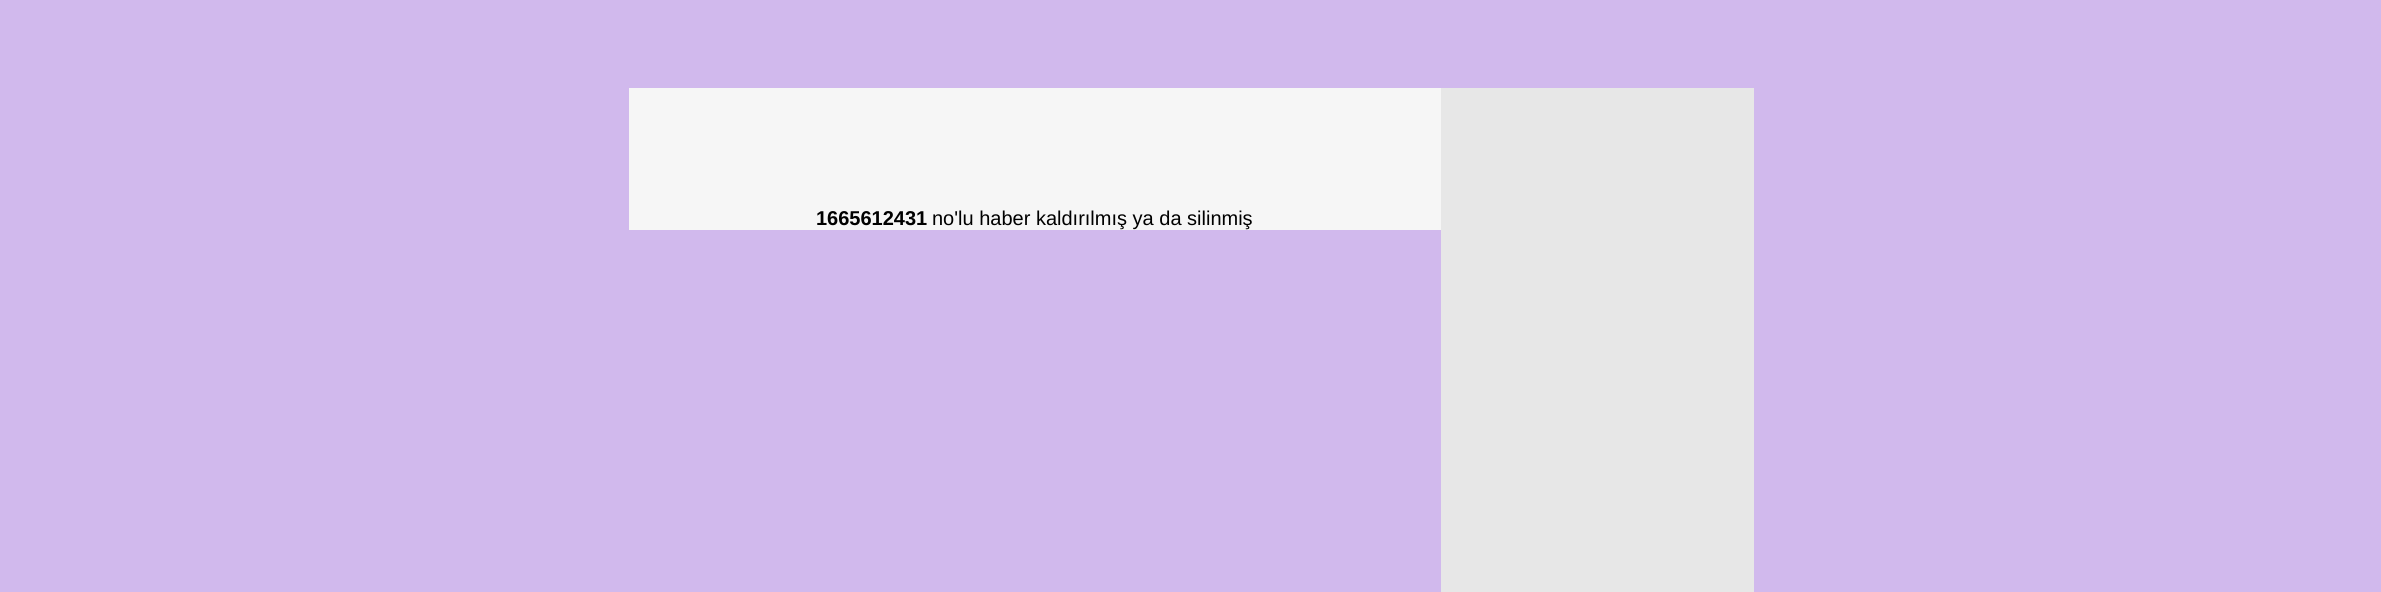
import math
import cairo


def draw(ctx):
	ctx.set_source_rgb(0.82, 0.725, 0.929)
	ctx.paint()
	ctx.set_source_rgb(0.961, 0.961, 0.961)
	ctx.rectangle(629, 88, 812, 142)
	ctx.fill()
	ctx.select_font_face('Liberation Sans', cairo.FONT_SLANT_NORMAL, cairo.FONT_WEIGHT_BOLD)
	ctx.set_font_size(20)
	ctx.set_source_rgb(0, 0, 0)
	ctx.move_to(816, 225)
	ctx.show_text('1665612431')
	ctx.select_font_face('Liberation Sans')
	ctx.move_to(932, 225)
	ctx.show_text('no\'lu haber kaldırılmış ya da silinmiş')
	ctx.set_source_rgb(0.906, 0.906, 0.906)
	ctx.rectangle(1441, 88, 313, 504)
	ctx.fill()


surface = cairo.ImageSurface(cairo.FORMAT_RGB24, 2381, 592)
ctx = cairo.Context(surface)
options = cairo.FontOptions()
options.set_hint_metrics(cairo.HINT_METRICS_OFF)
options.set_hint_style(cairo.HINT_STYLE_NONE)
ctx.set_font_options(options)
ctx.set_miter_limit(4)
draw(ctx)
surface.write_to_png('image.png')
